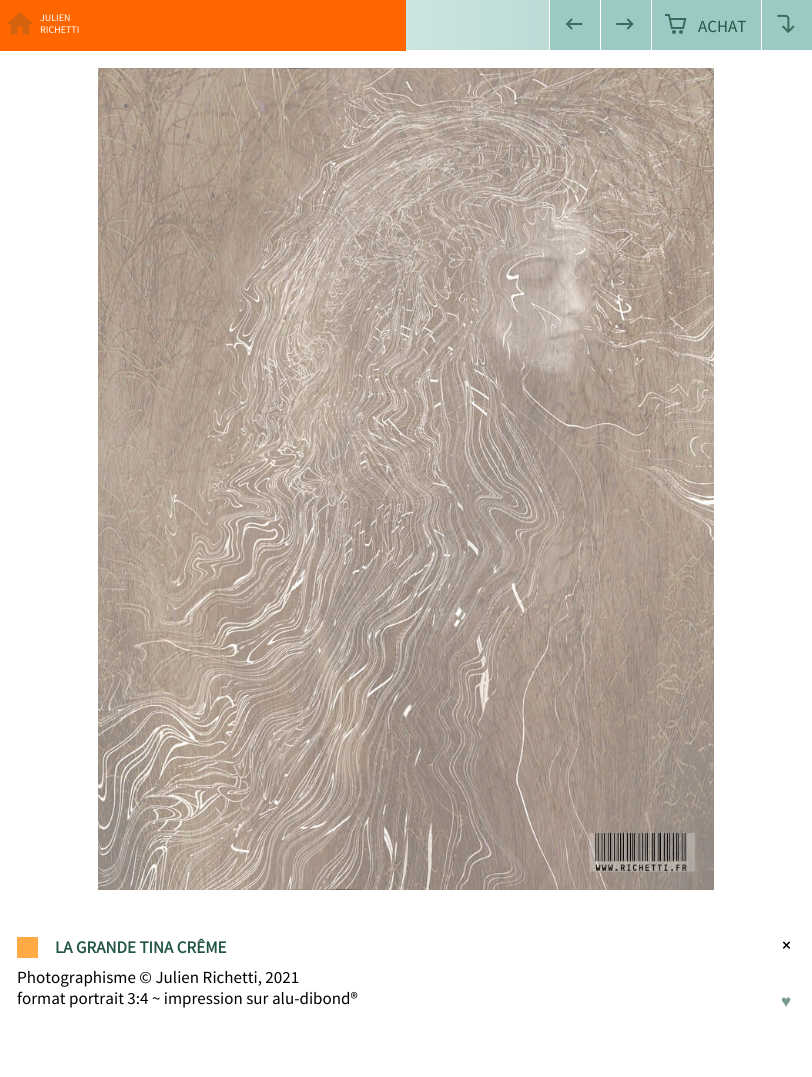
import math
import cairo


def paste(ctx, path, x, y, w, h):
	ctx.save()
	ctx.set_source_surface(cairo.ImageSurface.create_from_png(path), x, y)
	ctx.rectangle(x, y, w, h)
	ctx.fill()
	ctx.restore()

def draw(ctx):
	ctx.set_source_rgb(1, 1, 1)
	ctx.paint()
	gradient = cairo.LinearGradient(812, 25, 0, 25)
	gradient.add_color_stop_rgba(0, 0.608, 0.792, 0.769, 1)
	gradient.add_color_stop_rgba(1, 1, 1, 1, 1)
	ctx.set_source(gradient)
	ctx.rectangle(406, 0, 143, 50)
	ctx.fill()
	ctx.set_source_rgb(1, 0.4, 0)
	ctx.rectangle(0, 0, 406, 51)
	ctx.fill()
	paste(ctx, 'media/1.png', 7, 12, 26, 23)
	ctx.select_font_face('Source Sans Pro')
	ctx.set_font_size(10)
	ctx.set_source_rgb(1, 1, 1)
	ctx.move_to(40, 21)
	ctx.show_text('JULIEN')
	ctx.move_to(40, 33)
	ctx.show_text('RICHETTI')
	ctx.set_source_rgb(0.608, 0.792, 0.769)
	ctx.rectangle(550, 0, 50, 50)
	ctx.fill()
	paste(ctx, 'media/2.png', 565, 18, 18, 12)
	ctx.rectangle(601, 0, 50, 50)
	ctx.fill()
	paste(ctx, 'media/3.png', 616, 18, 18, 12)
	ctx.rectangle(652, 0, 109, 50)
	ctx.fill()
	paste(ctx, 'media/4.png', 665, 14, 22, 20)
	ctx.set_font_size(17)
	ctx.set_source_rgb(0.133, 0.333, 0.267)
	ctx.move_to(698, 32)
	ctx.show_text('ACHAT')
	ctx.set_source_rgb(0.608, 0.792, 0.769)
	ctx.rectangle(762, 0, 50, 50)
	ctx.fill()
	paste(ctx, 'media/5.png', 777, 14, 18, 19)
	paste(ctx, 'media/6.png', 98, 68, 616, 822)
	ctx.set_source_rgb(1, 0.667, 0.267)
	ctx.rectangle(17, 937, 21, 21)
	ctx.fill()
	ctx.select_font_face('Source Sans Pro', cairo.FONT_SLANT_NORMAL, cairo.FONT_WEIGHT_BOLD)
	ctx.set_source_rgb(0.133, 0.333, 0.267)
	ctx.move_to(55, 953)
	ctx.show_text('LA GRANDE TINA CRÊME')
	ctx.select_font_face('Source Sans Pro')
	ctx.set_source_rgb(0, 0, 0)
	ctx.move_to(17, 983)
	ctx.show_text('Photographisme © Julien Richetti, 2021')
	ctx.move_to(17, 1004)
	ctx.show_text('format portrait 3:4 ~ impression sur alu-dibond®')
	ctx.select_font_face('Source Sans Pro', cairo.FONT_SLANT_NORMAL, cairo.FONT_WEIGHT_BOLD)
	ctx.move_to(782, 951)
	ctx.show_text('×')
	ctx.select_font_face('Liberation Sans', cairo.FONT_SLANT_NORMAL, cairo.FONT_WEIGHT_BOLD)
	ctx.set_source_rgb(0.478, 0.6, 0.561)
	ctx.move_to(781, 1007)
	ctx.show_text('♥')


surface = cairo.ImageSurface(cairo.FORMAT_RGB24, 812, 1077)
ctx = cairo.Context(surface)
options = cairo.FontOptions()
options.set_hint_metrics(cairo.HINT_METRICS_OFF)
options.set_hint_style(cairo.HINT_STYLE_NONE)
ctx.set_font_options(options)
ctx.set_miter_limit(4)
draw(ctx)
surface.write_to_png('image.png')
